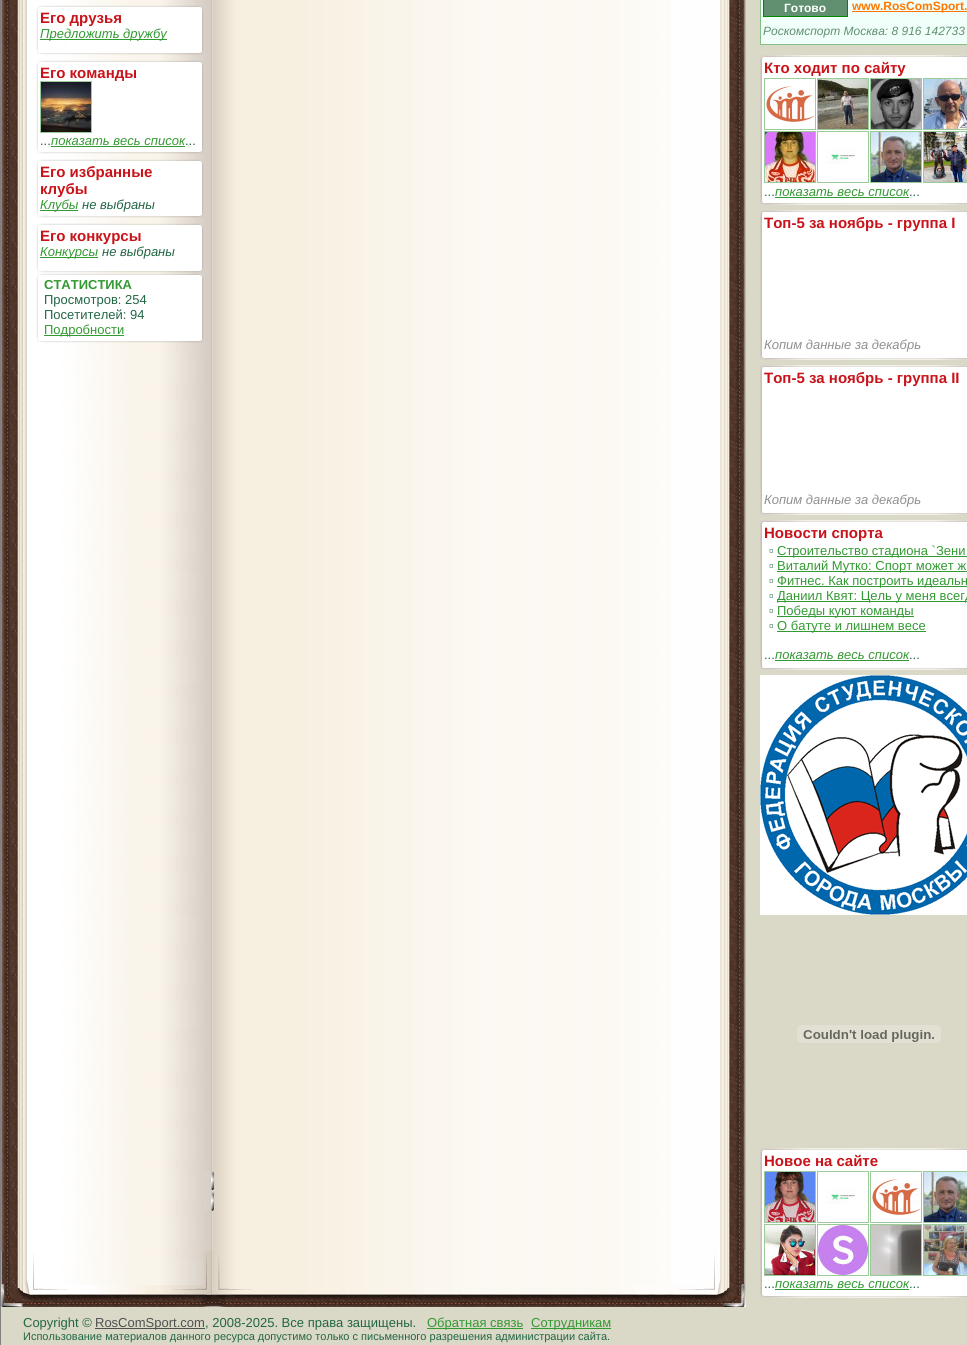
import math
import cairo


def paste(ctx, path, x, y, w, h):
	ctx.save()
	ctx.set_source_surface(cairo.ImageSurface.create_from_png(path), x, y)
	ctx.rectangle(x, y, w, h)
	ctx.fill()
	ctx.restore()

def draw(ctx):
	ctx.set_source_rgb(0.855, 0.847, 0.78)
	ctx.paint()
	ctx.rectangle(0.5, -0.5, 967, 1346)
	ctx.set_source_rgb(0.502, 0.502, 0.502)
	ctx.set_line_width(1)
	ctx.stroke()
	paste(ctx, 'media/1.png', 1, 0, 222, 1285)
	paste(ctx, 'media/2.png', 37, 5, 166, 4)
	paste(ctx, 'media/3.png', 36, 9, 2, 40)
	paste(ctx, 'media/4.png', 37, 9, 1, 2)
	ctx.set_source_rgb(1, 1, 1)
	ctx.rectangle(67, 9, 133, 40)
	ctx.fill()
	ctx.select_font_face('Liberation Sans', cairo.FONT_SLANT_NORMAL, cairo.FONT_WEIGHT_BOLD)
	ctx.set_font_size(15)
	ctx.set_source_rgb(0.784, 0.078, 0.102)
	ctx.move_to(40, 23)
	ctx.show_text('Его друзья')
	ctx.set_source_rgb(0.2, 0.6, 0.2)
	ctx.rectangle(40, 39, 127, 1)
	ctx.fill()
	ctx.select_font_face('Liberation Sans', cairo.FONT_SLANT_ITALIC)
	ctx.set_font_size(13)
	ctx.move_to(40, 38)
	ctx.show_text('Предложить дружбу')
	paste(ctx, 'media/5.png', 200, 9, 4, 40)
	paste(ctx, 'media/6.png', 202, 9, 1, 2)
	paste(ctx, 'media/7.png', 36, 49, 168, 6)
	paste(ctx, 'media/2.png', 37, 60, 166, 4)
	paste(ctx, 'media/8.png', 36, 64, 2, 84)
	paste(ctx, 'media/4.png', 37, 64, 1, 2)
	ctx.set_source_rgb(1, 1, 1)
	ctx.rectangle(67, 64, 133, 84)
	ctx.fill()
	ctx.select_font_face('Liberation Sans', cairo.FONT_SLANT_NORMAL, cairo.FONT_WEIGHT_BOLD)
	ctx.set_font_size(15)
	ctx.set_source_rgb(0.784, 0.078, 0.102)
	ctx.move_to(40, 78)
	ctx.show_text('Его команды')
	ctx.rectangle(40.5, 81.5, 51, 51)
	ctx.set_source_rgb(0.6, 0.8, 0.6)
	ctx.stroke()
	paste(ctx, 'media/9.png', 41, 82, 50, 50)
	ctx.select_font_face('Liberation Sans')
	ctx.set_font_size(13)
	ctx.set_source_rgb(0.133, 0.4, 0.267)
	ctx.move_to(40, 145)
	ctx.show_text('...')
	ctx.select_font_face('Liberation Sans', cairo.FONT_SLANT_ITALIC)
	ctx.set_source_rgb(0.2, 0.6, 0.2)
	ctx.move_to(51, 145)
	ctx.show_text('показать весь список')
	ctx.rectangle(51, 146, 134, 1)
	ctx.fill()
	ctx.select_font_face('Liberation Sans')
	ctx.set_source_rgb(0.133, 0.4, 0.267)
	ctx.move_to(185, 145)
	ctx.show_text('...')
	paste(ctx, 'media/10.png', 200, 64, 4, 84)
	paste(ctx, 'media/6.png', 202, 64, 1, 2)
	paste(ctx, 'media/7.png', 36, 148, 168, 6)
	paste(ctx, 'media/2.png', 37, 159, 166, 4)
	paste(ctx, 'media/11.png', 36, 163, 2, 49)
	paste(ctx, 'media/4.png', 37, 163, 1, 2)
	ctx.set_source_rgb(1, 1, 1)
	ctx.rectangle(67, 163, 133, 49)
	ctx.fill()
	ctx.select_font_face('Liberation Sans', cairo.FONT_SLANT_NORMAL, cairo.FONT_WEIGHT_BOLD)
	ctx.set_font_size(15)
	ctx.set_source_rgb(0.784, 0.078, 0.102)
	ctx.move_to(40, 177)
	ctx.show_text('Его избранные')
	ctx.move_to(40, 194)
	ctx.show_text('клубы')
	ctx.set_source_rgb(0.2, 0.6, 0.2)
	ctx.rectangle(40, 210, 38, 1)
	ctx.fill()
	ctx.select_font_face('Liberation Sans', cairo.FONT_SLANT_ITALIC)
	ctx.set_font_size(13)
	ctx.move_to(40, 209)
	ctx.show_text('Клубы')
	ctx.set_source_rgb(0.133, 0.4, 0.267)
	ctx.move_to(82, 209)
	ctx.show_text('не выбраны')
	paste(ctx, 'media/12.png', 200, 163, 4, 49)
	paste(ctx, 'media/6.png', 202, 163, 1, 2)
	paste(ctx, 'media/7.png', 36, 212, 168, 6)
	paste(ctx, 'media/2.png', 37, 223, 166, 4)
	paste(ctx, 'media/3.png', 36, 227, 2, 40)
	paste(ctx, 'media/4.png', 37, 227, 1, 2)
	ctx.set_source_rgb(1, 1, 1)
	ctx.rectangle(67, 227, 133, 40)
	ctx.fill()
	ctx.select_font_face('Liberation Sans', cairo.FONT_SLANT_NORMAL, cairo.FONT_WEIGHT_BOLD)
	ctx.set_font_size(15)
	ctx.set_source_rgb(0.784, 0.078, 0.102)
	ctx.move_to(40, 241)
	ctx.show_text('Его конкурсы')
	ctx.set_source_rgb(0.2, 0.6, 0.2)
	ctx.rectangle(40, 257, 58, 1)
	ctx.fill()
	ctx.select_font_face('Liberation Sans', cairo.FONT_SLANT_ITALIC)
	ctx.set_font_size(13)
	ctx.move_to(40, 256)
	ctx.show_text('Конкурсы')
	ctx.set_source_rgb(0.133, 0.4, 0.267)
	ctx.move_to(102, 256)
	ctx.show_text('не выбраны')
	paste(ctx, 'media/5.png', 200, 227, 4, 40)
	paste(ctx, 'media/6.png', 202, 227, 1, 2)
	paste(ctx, 'media/7.png', 36, 267, 168, 6)
	paste(ctx, 'media/2.png', 37, 273, 166, 4)
	paste(ctx, 'media/13.png', 36, 277, 2, 60)
	paste(ctx, 'media/4.png', 37, 277, 1, 2)
	ctx.set_source_rgb(1, 1, 1)
	ctx.rectangle(67, 277, 133, 60)
	ctx.fill()
	ctx.select_font_face('Liberation Sans', cairo.FONT_SLANT_NORMAL, cairo.FONT_WEIGHT_BOLD)
	ctx.set_source_rgb(0.2, 0.6, 0.2)
	ctx.move_to(44, 289)
	ctx.show_text('СТАТИСТИКА')
	ctx.select_font_face('Liberation Sans')
	ctx.set_source_rgb(0.133, 0.4, 0.267)
	ctx.move_to(44, 304)
	ctx.show_text('Просмотров: 254')
	ctx.move_to(44, 319)
	ctx.show_text('Посетителей: 94')
	ctx.set_source_rgb(0.2, 0.6, 0.2)
	ctx.rectangle(44, 335, 80, 1)
	ctx.fill()
	ctx.move_to(44, 334)
	ctx.show_text('Подробности')
	paste(ctx, 'media/14.png', 200, 277, 4, 60)
	paste(ctx, 'media/6.png', 202, 277, 1, 2)
	paste(ctx, 'media/7.png', 36, 337, 168, 6)
	paste(ctx, 'media/15.png', 204, 1171, 10, 40)
	paste(ctx, 'media/16.png', 204, 1251, 16, 34)
	paste(ctx, 'media/17.png', 1, 1251, 33, 34)
	ctx.set_source_rgb(1, 0.996, 0.996)
	ctx.rectangle(671, 0, 40, 1285)
	ctx.fill()
	paste(ctx, 'media/18.png', 223, 0, 448, 1285)
	paste(ctx, 'media/19.png', 711, 0, 35, 1285)
	paste(ctx, 'media/20.png', 714, 1250, 32, 35)
	paste(ctx, 'media/21.png', 1, 1285, 251, 22)
	paste(ctx, 'media/22.png', 634, 1285, 47, 22)
	paste(ctx, 'media/23.png', 252, 1285, 382, 22)
	paste(ctx, 'media/24.png', 681, 1285, 65, 22)
	ctx.set_source_rgb(0.133, 0.4, 0.267)
	ctx.move_to(23, 1327)
	ctx.show_text('Copyright ©')
	ctx.set_source_rgb(0.314, 0.314, 0.314)
	ctx.rectangle(95, 1328, 110, 1)
	ctx.fill()
	ctx.move_to(95, 1327)
	ctx.show_text('RosComSport.com')
	ctx.set_source_rgb(0.133, 0.4, 0.267)
	ctx.move_to(205, 1327)
	ctx.show_text(', 2008-2025. Все права защищены.')
	ctx.set_source_rgb(0.2, 0.6, 0.2)
	ctx.rectangle(427, 1328, 96, 1)
	ctx.fill()
	ctx.move_to(427, 1327)
	ctx.show_text('Обратная связь')
	ctx.rectangle(531, 1328, 80, 1)
	ctx.fill()
	ctx.move_to(531, 1327)
	ctx.show_text('Сотрудникам')
	ctx.set_font_size(11)
	ctx.set_source_rgb(0.133, 0.4, 0.267)
	ctx.move_to(23, 1340)
	ctx.show_text('Использование материалов данного ресурса допустимо только с письменного разрешения администрации сайта.')
	ctx.set_source_rgb(0.502, 0.753, 0.502)
	ctx.rectangle(760, 0, 207, 45)
	ctx.fill()
	ctx.set_source_rgb(1, 1, 1)
	ctx.rectangle(761, 0, 206, 44)
	ctx.fill()
	ctx.set_source_rgb(0.941, 1, 0.973)
	ctx.rectangle(762, 0, 205, 43)
	ctx.fill()
	ctx.set_source_rgb(0.376, 0.565, 0.439)
	ctx.rectangle(763.5, -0.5, 84, 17)
	ctx.fill_preserve()
	ctx.set_source_rgb(0, 0.533, 0)
	ctx.stroke()
	ctx.select_font_face('Liberation Sans', cairo.FONT_SLANT_NORMAL, cairo.FONT_WEIGHT_BOLD)
	ctx.set_font_size(12)
	ctx.set_source_rgb(1, 1, 1)
	ctx.move_to(784, 12)
	ctx.show_text('Готово')
	ctx.set_source_rgb(1, 0.467, 0)
	ctx.rectangle(852, 11, 115, 1)
	ctx.fill()
	ctx.move_to(852, 10)
	ctx.show_text('www.RosComSport.')
	ctx.select_font_face('Liberation Sans', cairo.FONT_SLANT_ITALIC)
	ctx.set_source_rgb(0.376, 0.565, 0.439)
	ctx.move_to(763, 35)
	ctx.show_text('Роскомспорт Москва: 8 916 142733')
	paste(ctx, 'media/25.png', 760, 55, 207, 4)
	paste(ctx, 'media/26.png', 760, 59, 4, 142)
	ctx.set_source_rgb(1, 1, 1)
	ctx.rectangle(764, 59, 203, 142)
	ctx.fill()
	ctx.select_font_face('Liberation Sans', cairo.FONT_SLANT_NORMAL, cairo.FONT_WEIGHT_BOLD)
	ctx.set_font_size(15)
	ctx.set_source_rgb(0.784, 0.078, 0.102)
	ctx.move_to(764, 73)
	ctx.show_text('Кто ходит по сайту')
	ctx.rectangle(764.5, 78.5, 51, 51)
	ctx.set_source_rgb(0.6, 0.8, 0.6)
	ctx.stroke()
	ctx.rectangle(817.5, 78.5, 51, 51)
	ctx.stroke()
	ctx.rectangle(870.5, 78.5, 51, 51)
	ctx.stroke()
	ctx.rectangle(923.5, 78.5, 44, 51)
	ctx.stroke()
	paste(ctx, 'media/27.png', 766, 86, 49, 36)
	paste(ctx, 'media/28.png', 818, 79, 50, 50)
	paste(ctx, 'media/29.png', 871, 79, 50, 50)
	paste(ctx, 'media/30.png', 924, 79, 43, 50)
	ctx.rectangle(764.5, 131.5, 51, 51)
	ctx.stroke()
	ctx.rectangle(817.5, 131.5, 51, 51)
	ctx.stroke()
	ctx.rectangle(870.5, 131.5, 51, 51)
	ctx.stroke()
	ctx.rectangle(923.5, 131.5, 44, 51)
	ctx.stroke()
	paste(ctx, 'media/31.png', 765, 132, 50, 50)
	paste(ctx, 'media/32.png', 826, 148, 30, 16)
	paste(ctx, 'media/33.png', 871, 132, 50, 50)
	paste(ctx, 'media/34.png', 924, 132, 43, 50)
	ctx.select_font_face('Liberation Sans')
	ctx.set_font_size(13)
	ctx.set_source_rgb(0.133, 0.4, 0.267)
	ctx.move_to(764, 196)
	ctx.show_text('...')
	ctx.select_font_face('Liberation Sans', cairo.FONT_SLANT_ITALIC)
	ctx.set_source_rgb(0.2, 0.6, 0.2)
	ctx.move_to(775, 196)
	ctx.show_text('показать весь список')
	ctx.rectangle(775, 197, 134, 1)
	ctx.fill()
	ctx.select_font_face('Liberation Sans')
	ctx.set_source_rgb(0.133, 0.4, 0.267)
	ctx.move_to(909, 196)
	ctx.show_text('...')
	paste(ctx, 'media/35.png', 760, 201, 207, 4)
	paste(ctx, 'media/25.png', 760, 210, 207, 4)
	paste(ctx, 'media/26.png', 760, 214, 4, 142)
	ctx.set_source_rgb(1, 1, 1)
	ctx.rectangle(764, 214, 203, 142)
	ctx.fill()
	ctx.select_font_face('Liberation Sans', cairo.FONT_SLANT_NORMAL, cairo.FONT_WEIGHT_BOLD)
	ctx.set_font_size(15)
	ctx.set_source_rgb(0.784, 0.078, 0.102)
	ctx.move_to(764, 228)
	ctx.show_text('Топ-5 за ноябрь - группа I')
	ctx.select_font_face('Liberation Sans', cairo.FONT_SLANT_ITALIC)
	ctx.set_font_size(13)
	ctx.set_source_rgb(0.565, 0.565, 0.565)
	ctx.move_to(764, 349)
	ctx.show_text('Копим данные за декабрь')
	paste(ctx, 'media/35.png', 760, 356, 207, 4)
	paste(ctx, 'media/25.png', 760, 365, 207, 4)
	paste(ctx, 'media/26.png', 760, 369, 4, 142)
	ctx.set_source_rgb(1, 1, 1)
	ctx.rectangle(764, 369, 203, 142)
	ctx.fill()
	ctx.select_font_face('Liberation Sans', cairo.FONT_SLANT_NORMAL, cairo.FONT_WEIGHT_BOLD)
	ctx.set_font_size(15)
	ctx.set_source_rgb(0.784, 0.078, 0.102)
	ctx.move_to(764, 383)
	ctx.show_text('Топ-5 за ноябрь - группа II')
	ctx.select_font_face('Liberation Sans', cairo.FONT_SLANT_ITALIC)
	ctx.set_font_size(13)
	ctx.set_source_rgb(0.565, 0.565, 0.565)
	ctx.move_to(764, 504)
	ctx.show_text('Копим данные за декабрь')
	paste(ctx, 'media/35.png', 760, 511, 207, 4)
	paste(ctx, 'media/25.png', 760, 520, 207, 4)
	paste(ctx, 'media/26.png', 760, 524, 4, 142)
	ctx.set_source_rgb(1, 1, 1)
	ctx.rectangle(764, 524, 203, 142)
	ctx.fill()
	ctx.select_font_face('Liberation Sans', cairo.FONT_SLANT_NORMAL, cairo.FONT_WEIGHT_BOLD)
	ctx.set_font_size(15)
	ctx.set_source_rgb(0.784, 0.078, 0.102)
	ctx.move_to(764, 538)
	ctx.show_text('Новости спорта')
	ctx.select_font_face('Liberation Sans')
	ctx.set_font_size(13)
	ctx.set_source_rgb(0.133, 0.4, 0.267)
	ctx.move_to(769, 555)
	ctx.show_text('▫')
	ctx.set_source_rgb(0.2, 0.6, 0.2)
	ctx.rectangle(777, 556, 190, 1)
	ctx.fill()
	ctx.move_to(777, 555)
	ctx.show_text('Строительство стадиона `Зени')
	ctx.set_source_rgb(0.133, 0.4, 0.267)
	ctx.move_to(769, 570)
	ctx.show_text('▫')
	ctx.set_source_rgb(0.2, 0.6, 0.2)
	ctx.rectangle(777, 571, 190, 1)
	ctx.fill()
	ctx.move_to(777, 570)
	ctx.show_text('Виталий Мутко: Спорт может ж')
	ctx.set_source_rgb(0.133, 0.4, 0.267)
	ctx.move_to(769, 585)
	ctx.show_text('▫')
	ctx.set_source_rgb(0.2, 0.6, 0.2)
	ctx.rectangle(777, 586, 190, 1)
	ctx.fill()
	ctx.move_to(777, 585)
	ctx.show_text('Фитнес. Как построить идеальн')
	ctx.set_source_rgb(0.133, 0.4, 0.267)
	ctx.move_to(769, 600)
	ctx.show_text('▫')
	ctx.set_source_rgb(0.2, 0.6, 0.2)
	ctx.rectangle(777, 601, 190, 1)
	ctx.fill()
	ctx.move_to(777, 600)
	ctx.show_text('Даниил Квят: Цель у меня всегд')
	ctx.set_source_rgb(0.133, 0.4, 0.267)
	ctx.move_to(769, 615)
	ctx.show_text('▫')
	ctx.set_source_rgb(0.2, 0.6, 0.2)
	ctx.rectangle(777, 616, 137, 1)
	ctx.fill()
	ctx.move_to(777, 615)
	ctx.show_text('Победы куют команды')
	ctx.set_source_rgb(0.133, 0.4, 0.267)
	ctx.move_to(769, 630)
	ctx.show_text('▫')
	ctx.set_source_rgb(0.2, 0.6, 0.2)
	ctx.rectangle(777, 631, 149, 1)
	ctx.fill()
	ctx.move_to(777, 630)
	ctx.show_text('О батуте и лишнем весе')
	ctx.set_source_rgb(0.133, 0.4, 0.267)
	ctx.move_to(764, 659)
	ctx.show_text('...')
	ctx.select_font_face('Liberation Sans', cairo.FONT_SLANT_ITALIC)
	ctx.set_source_rgb(0.2, 0.6, 0.2)
	ctx.move_to(775, 659)
	ctx.show_text('показать весь список')
	ctx.rectangle(775, 660, 134, 1)
	ctx.fill()
	ctx.select_font_face('Liberation Sans')
	ctx.set_source_rgb(0.133, 0.4, 0.267)
	ctx.move_to(909, 659)
	ctx.show_text('...')
	paste(ctx, 'media/35.png', 760, 666, 207, 4)
	paste(ctx, 'media/36.png', 760, 675, 207, 240)
	paste(ctx, 'media/37.png', 797, 1025, 144, 18)
	paste(ctx, 'media/25.png', 760, 1148, 207, 4)
	paste(ctx, 'media/26.png', 760, 1152, 4, 142)
	ctx.set_source_rgb(1, 1, 1)
	ctx.rectangle(764, 1152, 203, 142)
	ctx.fill()
	ctx.select_font_face('Liberation Sans', cairo.FONT_SLANT_NORMAL, cairo.FONT_WEIGHT_BOLD)
	ctx.set_font_size(15)
	ctx.set_source_rgb(0.784, 0.078, 0.102)
	ctx.move_to(764, 1166)
	ctx.show_text('Новое на сайте')
	ctx.rectangle(764.5, 1171.5, 51, 51)
	ctx.set_source_rgb(0.6, 0.8, 0.6)
	ctx.stroke()
	ctx.rectangle(817.5, 1171.5, 51, 51)
	ctx.stroke()
	ctx.rectangle(870.5, 1171.5, 51, 51)
	ctx.stroke()
	ctx.rectangle(923.5, 1171.5, 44, 51)
	ctx.stroke()
	paste(ctx, 'media/38.png', 765, 1172, 50, 50)
	paste(ctx, 'media/32.png', 826, 1188, 30, 16)
	paste(ctx, 'media/27.png', 872, 1179, 49, 36)
	paste(ctx, 'media/39.png', 924, 1172, 43, 50)
	ctx.rectangle(764.5, 1224.5, 51, 51)
	ctx.stroke()
	ctx.rectangle(817.5, 1224.5, 51, 51)
	ctx.stroke()
	ctx.rectangle(870.5, 1224.5, 51, 51)
	ctx.stroke()
	ctx.rectangle(923.5, 1224.5, 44, 51)
	ctx.stroke()
	paste(ctx, 'media/40.png', 765, 1225, 50, 50)
	paste(ctx, 'media/41.png', 818, 1225, 50, 50)
	paste(ctx, 'media/42.png', 871, 1225, 50, 50)
	paste(ctx, 'media/43.png', 924, 1225, 43, 50)
	ctx.select_font_face('Liberation Sans')
	ctx.set_font_size(13)
	ctx.set_source_rgb(0.133, 0.4, 0.267)
	ctx.move_to(764, 1288)
	ctx.show_text('...')
	ctx.select_font_face('Liberation Sans', cairo.FONT_SLANT_ITALIC)
	ctx.set_source_rgb(0.2, 0.6, 0.2)
	ctx.move_to(775, 1288)
	ctx.show_text('показать весь список')
	ctx.rectangle(775, 1289, 134, 1)
	ctx.fill()
	ctx.select_font_face('Liberation Sans')
	ctx.set_source_rgb(0.133, 0.4, 0.267)
	ctx.move_to(909, 1288)
	ctx.show_text('...')
	paste(ctx, 'media/35.png', 760, 1294, 207, 4)


surface = cairo.ImageSurface(cairo.FORMAT_RGB24, 967, 1345)
ctx = cairo.Context(surface)
options = cairo.FontOptions()
options.set_hint_metrics(cairo.HINT_METRICS_OFF)
options.set_hint_style(cairo.HINT_STYLE_NONE)
ctx.set_font_options(options)
ctx.set_miter_limit(4)
draw(ctx)
surface.write_to_png('image.png')
